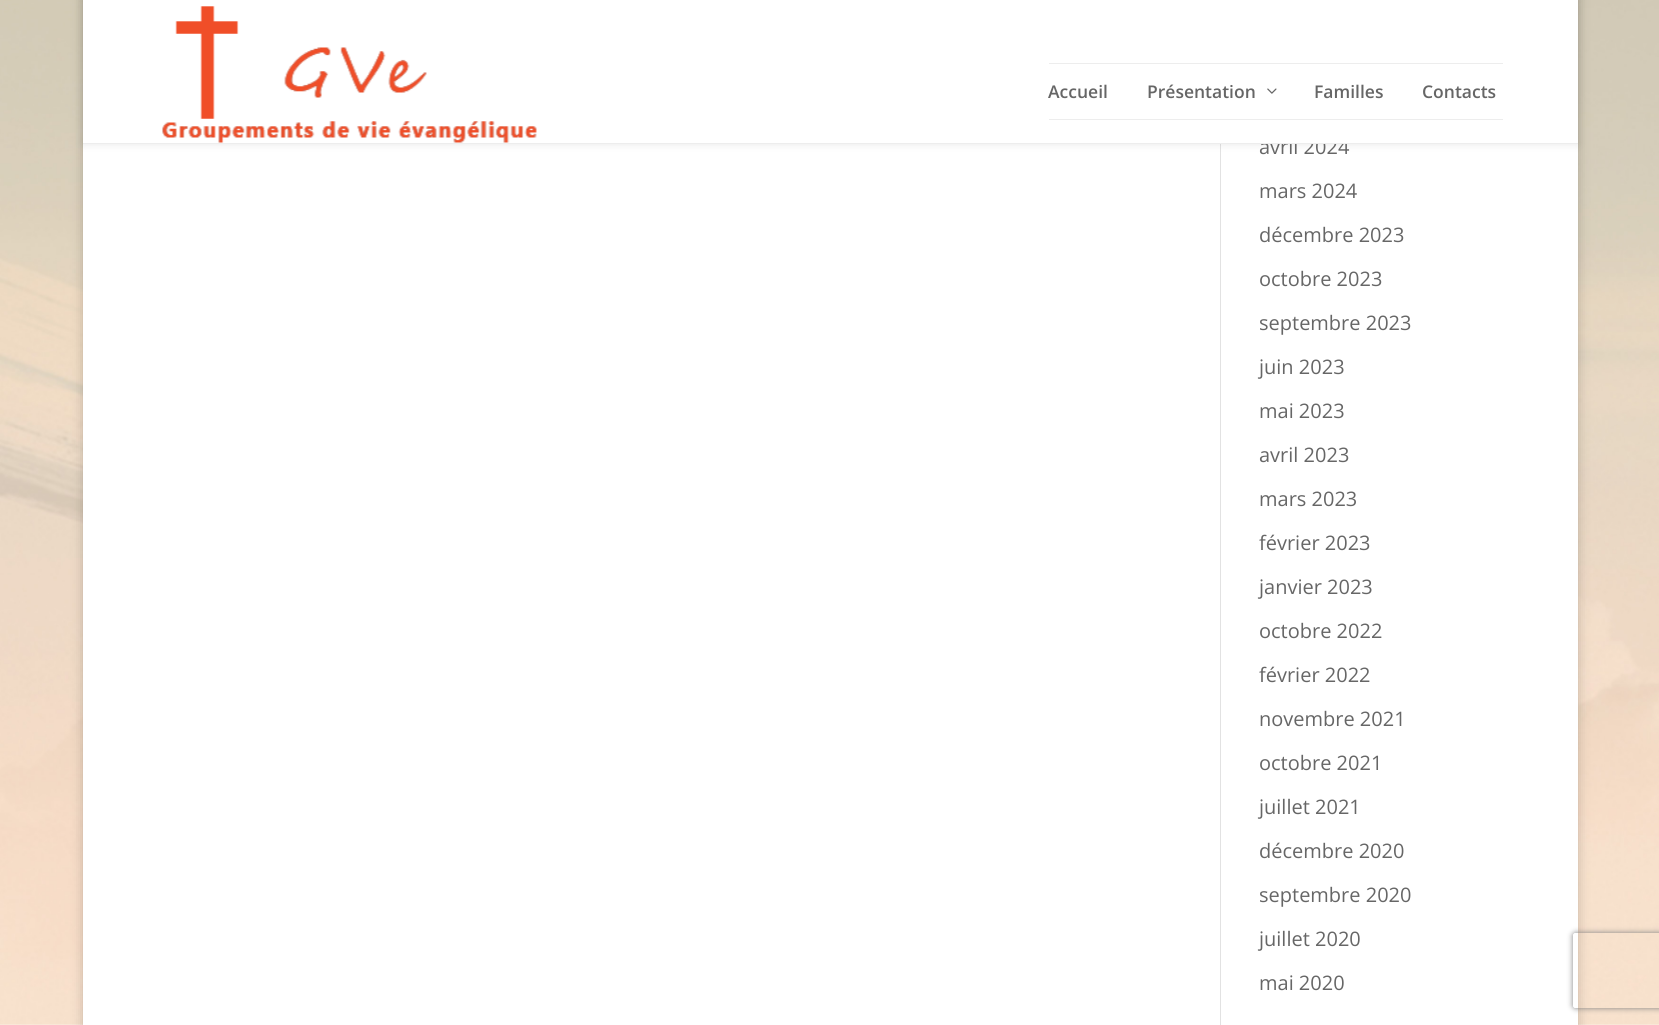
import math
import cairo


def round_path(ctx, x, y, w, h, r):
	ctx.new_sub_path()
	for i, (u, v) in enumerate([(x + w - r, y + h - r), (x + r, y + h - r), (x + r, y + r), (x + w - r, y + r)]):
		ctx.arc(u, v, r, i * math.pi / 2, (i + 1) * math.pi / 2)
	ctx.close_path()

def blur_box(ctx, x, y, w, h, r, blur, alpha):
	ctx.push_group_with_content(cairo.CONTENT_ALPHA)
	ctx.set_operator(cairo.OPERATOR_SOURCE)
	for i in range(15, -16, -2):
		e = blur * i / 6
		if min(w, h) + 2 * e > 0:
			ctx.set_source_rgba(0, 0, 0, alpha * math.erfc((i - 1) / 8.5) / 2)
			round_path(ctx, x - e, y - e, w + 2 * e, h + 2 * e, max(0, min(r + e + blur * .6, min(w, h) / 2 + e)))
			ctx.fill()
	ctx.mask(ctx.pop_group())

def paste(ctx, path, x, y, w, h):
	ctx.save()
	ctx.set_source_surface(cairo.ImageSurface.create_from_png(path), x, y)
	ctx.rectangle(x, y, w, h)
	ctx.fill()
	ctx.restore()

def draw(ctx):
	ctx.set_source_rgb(1, 1, 1)
	ctx.paint()
	paste(ctx, 'media/1.png', 0, 0, 1659, 1025)
	ctx.set_source_rgb(0, 0, 0)
	blur_box(ctx, 83, -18, 1495, 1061, 0, 6, 0.2)
	ctx.set_source_rgb(1, 1, 1)
	ctx.rectangle(83, 144, 1495, 881)
	ctx.fill()
	ctx.set_source_rgb(0.886, 0.886, 0.886)
	ctx.rectangle(1220, 144, 1, 881)
	ctx.fill()
	ctx.set_source_rgb(0, 0, 0)
	blur_box(ctx, 83, 0, 1495, 144, 0, 4.5, 0.1)
	ctx.select_font_face('Open Sans')
	ctx.set_font_size(20)
	ctx.set_source_rgb(0.4, 0.4, 0.4)
	ctx.move_to(1259, 154)
	ctx.show_text('avril 2024')
	ctx.set_source_rgb(1, 1, 1)
	ctx.rectangle(83, 0, 1495, 143)
	ctx.fill()
	ctx.set_source_rgb(0.929, 0.929, 0.929)
	ctx.rectangle(83, 143, 1495, 1)
	ctx.fill()
	paste(ctx, 'media/2.png', 162, 6, 375, 137)
	ctx.rectangle(1049, 63, 454, 1)
	ctx.fill()
	ctx.rectangle(1049, 119, 454, 1)
	ctx.fill()
	ctx.select_font_face('Open Sans SemiBold')
	ctx.set_font_size(17.5)
	ctx.set_source_rgb(0.4, 0.4, 0.4)
	ctx.move_to(1048, 98)
	ctx.show_text('Accueil')
	ctx.move_to(1147, 98)
	ctx.show_text('Présentation')
	paste(ctx, 'media/3.png', 1267, 88, 10, 6)
	ctx.move_to(1314, 98)
	ctx.show_text('Familles')
	ctx.move_to(1422, 98)
	ctx.show_text('Contacts')
	ctx.select_font_face('Open Sans')
	ctx.set_font_size(20)
	for x, y, s in [
		(1259, 198, 'mars 2024'),
		(1259, 242, 'décembre 2023'),
		(1259, 286, 'octobre 2023'),
		(1259, 330, 'septembre 2023'),
		(1259, 374, 'juin 2023'),
		(1259, 418, 'mai 2023'),
		(1259, 462, 'avril 2023'),
		(1259, 506, 'mars 2023'),
		(1259, 550, 'février 2023'),
		(1259, 594, 'janvier 2023'),
		(1259, 638, 'octobre 2022'),
		(1259, 682, 'février 2022'),
		(1259, 726, 'novembre 2021'),
		(1259, 770, 'octobre 2021'),
		(1259, 814, 'juillet 2021'),
		(1259, 858, 'décembre 2020'),
		(1259, 902, 'septembre 2020'),
		(1259, 946, 'juillet 2020'),
		(1259, 990, 'mai 2020'),
	]:
		ctx.move_to(x, y)
		ctx.show_text(s)
	ctx.save()
	ctx.set_fill_rule(cairo.FILL_RULE_EVEN_ODD)
	ctx.new_path()
	ctx.move_to(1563, 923)
	ctx.line_to(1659, 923)
	ctx.line_to(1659, 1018)
	ctx.line_to(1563, 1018)
	ctx.close_path()
	ctx.move_to(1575.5, 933)
	ctx.line_to(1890.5, 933)
	ctx.curve_to(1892, 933, 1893, 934, 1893, 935.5)
	ctx.line_to(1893, 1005.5)
	ctx.curve_to(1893, 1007, 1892, 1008, 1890.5, 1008)
	ctx.line_to(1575.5, 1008)
	ctx.curve_to(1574, 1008, 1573, 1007, 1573, 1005.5)
	ctx.line_to(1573, 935.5)
	ctx.curve_to(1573, 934, 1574, 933, 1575.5, 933)
	ctx.close_path()
	ctx.clip()
	ctx.set_source_rgb(0.502, 0.502, 0.502)
	blur_box(ctx, 1573, 933, 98, 75, 2.5, 3, 1)
	ctx.restore()


surface = cairo.ImageSurface(cairo.FORMAT_RGB24, 1659, 1025)
ctx = cairo.Context(surface)
options = cairo.FontOptions()
options.set_hint_metrics(cairo.HINT_METRICS_OFF)
options.set_hint_style(cairo.HINT_STYLE_NONE)
ctx.set_font_options(options)
ctx.set_miter_limit(4)
draw(ctx)
surface.write_to_png('image.png')
